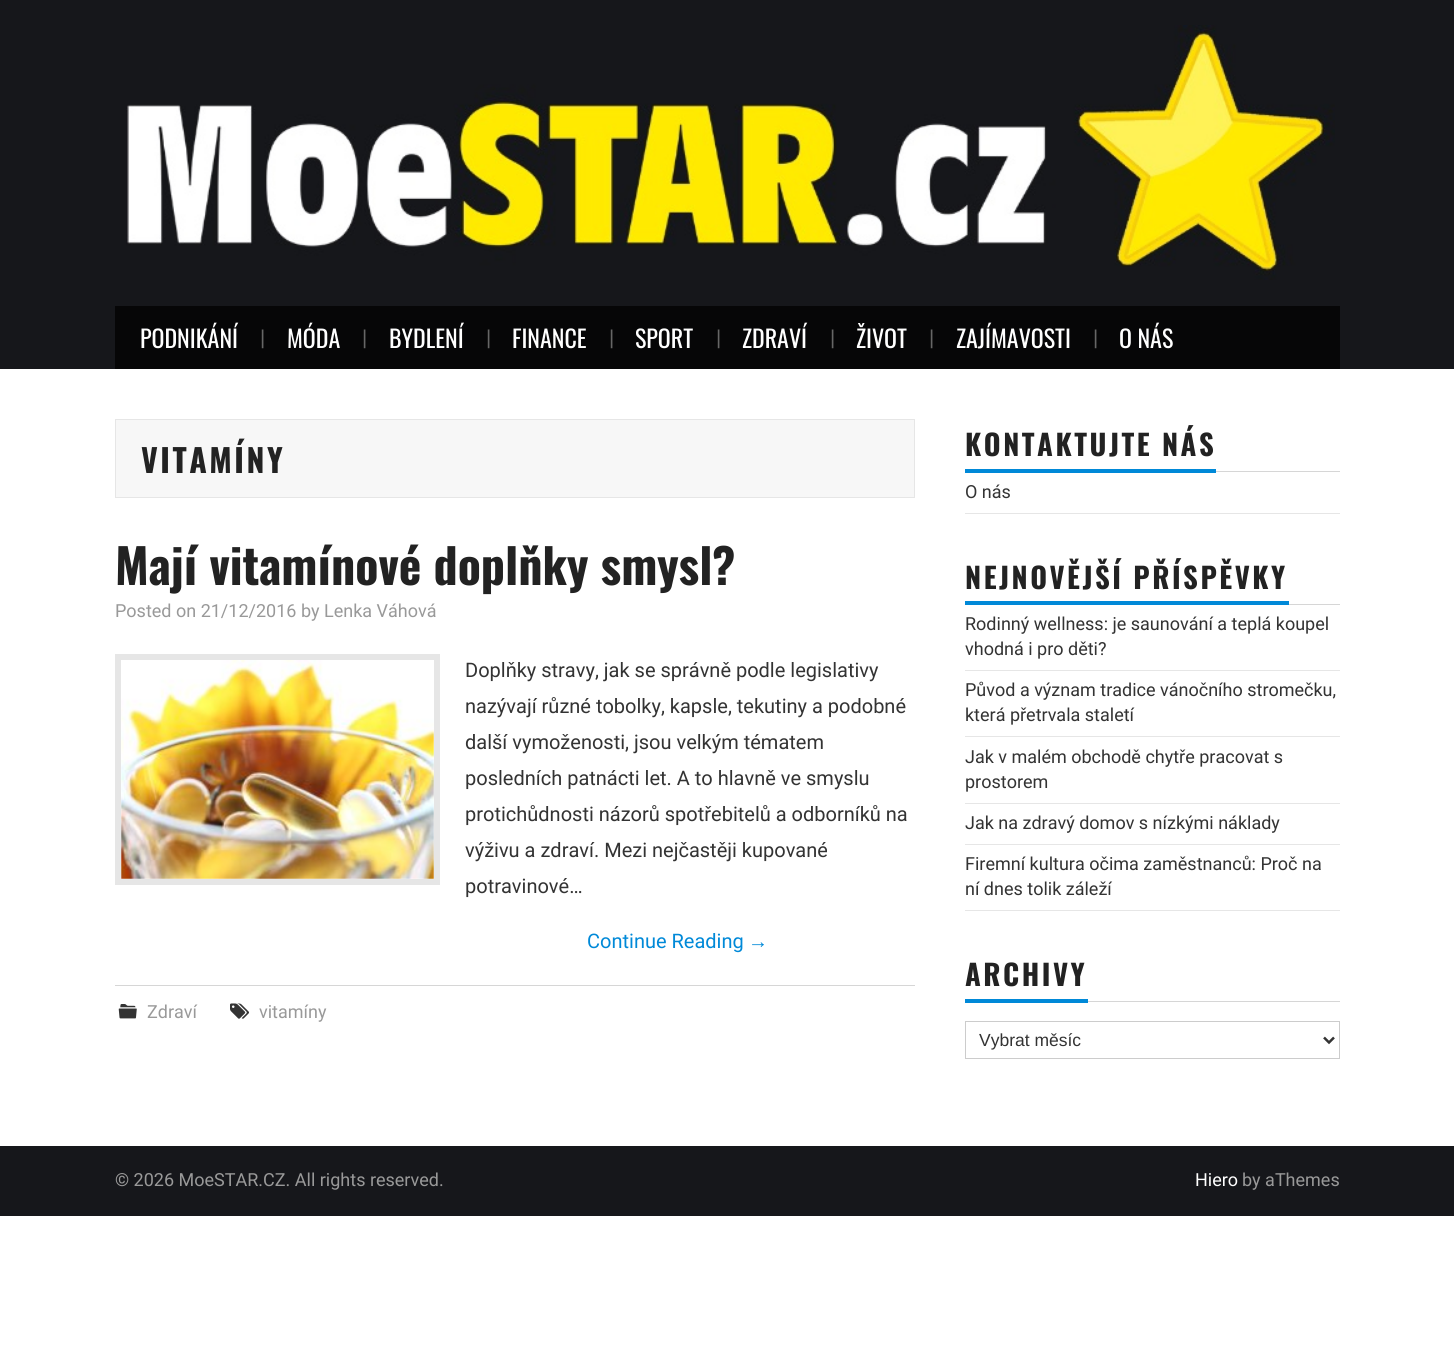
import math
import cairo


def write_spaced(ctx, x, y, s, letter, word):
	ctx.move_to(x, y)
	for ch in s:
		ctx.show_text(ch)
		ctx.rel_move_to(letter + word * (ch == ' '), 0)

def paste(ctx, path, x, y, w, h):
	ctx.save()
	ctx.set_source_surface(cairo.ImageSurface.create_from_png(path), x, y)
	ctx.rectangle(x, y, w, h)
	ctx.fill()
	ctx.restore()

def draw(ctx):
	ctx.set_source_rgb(1, 1, 1)
	ctx.paint()
	ctx.set_source_rgb(0.086, 0.09, 0.106)
	ctx.rectangle(0, 0, 1454, 369)
	ctx.fill()
	paste(ctx, 'media/1.png', 126, 25, 1209, 255)
	ctx.set_source_rgb(0.024, 0.024, 0.031)
	ctx.rectangle(115, 306, 1225, 63)
	ctx.fill()
	ctx.select_font_face('Oswald')
	ctx.set_font_size(24)
	ctx.set_source_rgb(1, 1, 1)
	ctx.move_to(140, 348)
	ctx.show_text('PODNIKÁNÍ')
	ctx.select_font_face('Liberation Sans')
	ctx.set_font_size(20)
	ctx.set_source_rgb(0.4, 0.4, 0.4)
	ctx.move_to(260, 344)
	ctx.show_text('|')
	ctx.select_font_face('Oswald')
	ctx.set_font_size(24)
	ctx.set_source_rgb(1, 1, 1)
	ctx.move_to(287, 348)
	ctx.show_text('MÓDA')
	ctx.select_font_face('Liberation Sans')
	ctx.set_font_size(20)
	ctx.set_source_rgb(0.4, 0.4, 0.4)
	ctx.move_to(362, 344)
	ctx.show_text('|')
	ctx.select_font_face('Oswald')
	ctx.set_font_size(24)
	ctx.set_source_rgb(1, 1, 1)
	ctx.move_to(389, 348)
	ctx.show_text('BYDLENÍ')
	ctx.select_font_face('Liberation Sans')
	ctx.set_font_size(20)
	ctx.set_source_rgb(0.4, 0.4, 0.4)
	ctx.move_to(486, 344)
	ctx.show_text('|')
	ctx.select_font_face('Oswald')
	ctx.set_font_size(24)
	ctx.set_source_rgb(1, 1, 1)
	ctx.move_to(512, 348)
	ctx.show_text('FINANCE')
	ctx.select_font_face('Liberation Sans')
	ctx.set_font_size(20)
	ctx.set_source_rgb(0.4, 0.4, 0.4)
	ctx.move_to(609, 344)
	ctx.show_text('|')
	ctx.select_font_face('Oswald')
	ctx.set_font_size(24)
	ctx.set_source_rgb(1, 1, 1)
	ctx.move_to(635, 348)
	ctx.show_text('SPORT')
	ctx.select_font_face('Liberation Sans')
	ctx.set_font_size(20)
	ctx.set_source_rgb(0.4, 0.4, 0.4)
	ctx.move_to(716, 344)
	ctx.show_text('|')
	ctx.select_font_face('Oswald')
	ctx.set_font_size(24)
	ctx.set_source_rgb(1, 1, 1)
	ctx.move_to(742, 348)
	ctx.show_text('ZDRAVÍ')
	ctx.select_font_face('Liberation Sans')
	ctx.set_font_size(20)
	ctx.set_source_rgb(0.4, 0.4, 0.4)
	ctx.move_to(830, 344)
	ctx.show_text('|')
	ctx.select_font_face('Oswald')
	ctx.set_font_size(24)
	ctx.set_source_rgb(1, 1, 1)
	ctx.move_to(856, 348)
	ctx.show_text('ŽIVOT')
	ctx.select_font_face('Liberation Sans')
	ctx.set_font_size(20)
	ctx.set_source_rgb(0.4, 0.4, 0.4)
	ctx.move_to(929, 344)
	ctx.show_text('|')
	ctx.select_font_face('Oswald')
	ctx.set_font_size(24)
	ctx.set_source_rgb(1, 1, 1)
	ctx.move_to(956, 348)
	ctx.show_text('ZAJÍMAVOSTI')
	ctx.select_font_face('Liberation Sans')
	ctx.set_font_size(20)
	ctx.set_source_rgb(0.4, 0.4, 0.4)
	ctx.move_to(1093, 344)
	ctx.show_text('|')
	ctx.select_font_face('Oswald')
	ctx.set_font_size(24)
	ctx.set_source_rgb(1, 1, 1)
	ctx.move_to(1119, 348)
	ctx.show_text('O NÁS')
	ctx.set_source_rgb(0.965, 0.965, 0.965)
	ctx.rectangle(115.5, 419.5, 799, 78)
	ctx.fill_preserve()
	ctx.set_source_rgb(0.902, 0.902, 0.902)
	ctx.set_line_width(1)
	ctx.stroke()
	ctx.select_font_face('Oswald', cairo.FONT_SLANT_NORMAL, cairo.FONT_WEIGHT_BOLD)
	ctx.set_font_size(32)
	ctx.set_source_rgb(0.133, 0.133, 0.133)
	write_spaced(ctx, 141, 473, 'VITAMÍNY', 2.5, 0)
	ctx.set_font_size(48)
	ctx.move_to(115, 585)
	ctx.show_text('Mají vitamínové doplňky smysl?')
	ctx.select_font_face('Roboto')
	ctx.set_font_size(18)
	ctx.set_source_rgb(0.6, 0.6, 0.6)
	ctx.move_to(115, 617)
	ctx.show_text('Posted on 21/12/2016 by Lenka Váhová')
	ctx.rectangle(118, 657, 319, 225)
	ctx.set_source_rgb(0.902, 0.902, 0.902)
	ctx.set_line_width(6)
	ctx.stroke()
	paste(ctx, 'media/2.png', 121, 660, 313, 219)
	ctx.set_font_size(20)
	ctx.set_source_rgb(0.2, 0.2, 0.2)
	for x, y, s in [
		(465, 677, 'Doplňky stravy, jak se správně podle legislativy'),
		(465, 713, 'nazývají různé tobolky, kapsle, tekutiny a podobné'),
		(465, 749, 'další vymoženosti, jsou velkým tématem'),
		(465, 785, 'posledních patnácti let. A to hlavně ve smyslu'),
		(465, 821, 'protichůdnosti názorů spotřebitelů a odborníků na'),
		(465, 857, 'výživu a zdraví. Mezi nejčastěji kupované'),
		(465, 893, 'potravinové…'),
	]:
		ctx.move_to(x, y)
		ctx.show_text(s)
	ctx.set_source_rgb(0, 0.537, 0.847)
	ctx.move_to(587, 948)
	ctx.show_text('Continue Reading')
	ctx.select_font_face('Liberation Serif')
	ctx.move_to(748, 948)
	ctx.show_text('→')
	ctx.set_source_rgb(0.839, 0.839, 0.839)
	ctx.rectangle(115, 985, 800, 1)
	ctx.fill()
	paste(ctx, 'media/3.png', 118, 1004, 19, 15)
	ctx.select_font_face('Roboto')
	ctx.set_font_size(18)
	ctx.set_source_rgb(0.6, 0.6, 0.6)
	ctx.move_to(147, 1018)
	ctx.show_text('Zdraví')
	paste(ctx, 'media/4.png', 230, 1003, 19, 16)
	ctx.move_to(259, 1018)
	ctx.show_text('vitamíny')
	ctx.set_source_rgb(0.839, 0.839, 0.839)
	ctx.rectangle(1216, 471, 124, 1)
	ctx.fill()
	ctx.set_source_rgb(0, 0.537, 0.847)
	ctx.rectangle(965, 469, 251, 4)
	ctx.fill()
	ctx.select_font_face('Oswald', cairo.FONT_SLANT_NORMAL, cairo.FONT_WEIGHT_BOLD)
	ctx.set_font_size(28.75)
	ctx.set_source_rgb(0.133, 0.133, 0.133)
	write_spaced(ctx, 965, 456, 'KONTAKTUJTE NÁS', 2.5, 0)
	ctx.set_source_rgb(0.902, 0.902, 0.902)
	ctx.rectangle(965, 513, 375, 1)
	ctx.fill()
	ctx.select_font_face('Roboto')
	ctx.set_font_size(18)
	ctx.set_source_rgb(0.2, 0.2, 0.2)
	ctx.move_to(965, 498)
	ctx.show_text('O nás')
	ctx.set_source_rgb(0.839, 0.839, 0.839)
	ctx.rectangle(1289, 604, 51, 1)
	ctx.fill()
	ctx.set_source_rgb(0, 0.537, 0.847)
	ctx.rectangle(965, 601, 324, 4)
	ctx.fill()
	ctx.select_font_face('Oswald', cairo.FONT_SLANT_NORMAL, cairo.FONT_WEIGHT_BOLD)
	ctx.set_font_size(28.75)
	ctx.set_source_rgb(0.133, 0.133, 0.133)
	write_spaced(ctx, 965, 589, 'NEJNOVĚJŠÍ PŘÍSPĚVKY', 2.5, 0)
	ctx.set_source_rgb(0.902, 0.902, 0.902)
	ctx.rectangle(965, 670, 375, 1)
	ctx.fill()
	ctx.select_font_face('Roboto')
	ctx.set_font_size(18)
	ctx.set_source_rgb(0.2, 0.2, 0.2)
	ctx.move_to(965, 630)
	ctx.show_text('Rodinný wellness: je saunování a teplá koupel')
	ctx.move_to(965, 655)
	ctx.show_text('vhodná i pro děti?')
	ctx.set_source_rgb(0.902, 0.902, 0.902)
	ctx.rectangle(965, 736, 375, 1)
	ctx.fill()
	ctx.set_source_rgb(0.2, 0.2, 0.2)
	ctx.move_to(965, 696)
	ctx.show_text('Původ a význam tradice vánočního stromečku,')
	ctx.move_to(965, 721)
	ctx.show_text('která přetrvala staletí')
	ctx.set_source_rgb(0.902, 0.902, 0.902)
	ctx.rectangle(965, 803, 375, 1)
	ctx.fill()
	ctx.set_source_rgb(0.2, 0.2, 0.2)
	ctx.move_to(965, 763)
	ctx.show_text('Jak v malém obchodě chytře pracovat s')
	ctx.move_to(965, 788)
	ctx.show_text('prostorem')
	ctx.set_source_rgb(0.902, 0.902, 0.902)
	ctx.rectangle(965, 844, 375, 1)
	ctx.fill()
	ctx.set_source_rgb(0.2, 0.2, 0.2)
	ctx.move_to(965, 829)
	ctx.show_text('Jak na zdravý domov s nízkými náklady')
	ctx.set_source_rgb(0.902, 0.902, 0.902)
	ctx.rectangle(965, 910, 375, 1)
	ctx.fill()
	ctx.set_source_rgb(0.2, 0.2, 0.2)
	ctx.move_to(965, 870)
	ctx.show_text('Firemní kultura očima zaměstnanců: Proč na')
	ctx.move_to(965, 895)
	ctx.show_text('ní dnes tolik záleží')
	ctx.set_source_rgb(0.839, 0.839, 0.839)
	ctx.rectangle(1088, 1001, 252, 1)
	ctx.fill()
	ctx.set_source_rgb(0, 0.537, 0.847)
	ctx.rectangle(965, 999, 123, 4)
	ctx.fill()
	ctx.select_font_face('Oswald', cairo.FONT_SLANT_NORMAL, cairo.FONT_WEIGHT_BOLD)
	ctx.set_font_size(28.75)
	ctx.set_source_rgb(0.133, 0.133, 0.133)
	write_spaced(ctx, 965, 986, 'ARCHIVY', 2.5, 0)
	ctx.rectangle(965.5, 1021.5, 374, 37)
	ctx.set_source_rgb(0.8, 0.8, 0.8)
	ctx.set_line_width(1)
	ctx.stroke()
	ctx.new_path()
	ctx.move_to(1324, 1037.5)
	ctx.line_to(1329, 1042.5)
	ctx.line_to(1334, 1037.5)
	ctx.set_source_rgb(0.2, 0.2, 0.2)
	ctx.set_line_width(2.5)
	ctx.stroke()
	ctx.select_font_face('Liberation Sans')
	ctx.set_font_size(17.5)
	ctx.move_to(979, 1046)
	ctx.show_text('Vybrat měsíc')
	ctx.set_source_rgb(0.086, 0.09, 0.106)
	ctx.rectangle(0, 1146, 1454, 70)
	ctx.fill()
	ctx.select_font_face('Roboto')
	ctx.set_font_size(18)
	ctx.set_source_rgb(0.6, 0.6, 0.6)
	ctx.move_to(115, 1186)
	ctx.show_text('© 2026 MoeSTAR.CZ. All rights reserved.')
	ctx.set_source_rgb(1, 1, 1)
	ctx.move_to(1195, 1186)
	ctx.show_text('Hiero')
	ctx.set_source_rgb(0.6, 0.6, 0.6)
	ctx.move_to(1242, 1186)
	ctx.show_text('by aThemes')


surface = cairo.ImageSurface(cairo.FORMAT_RGB24, 1454, 1355)
ctx = cairo.Context(surface)
options = cairo.FontOptions()
options.set_hint_metrics(cairo.HINT_METRICS_OFF)
options.set_hint_style(cairo.HINT_STYLE_NONE)
ctx.set_font_options(options)
ctx.set_miter_limit(4)
draw(ctx)
surface.write_to_png('image.png')
